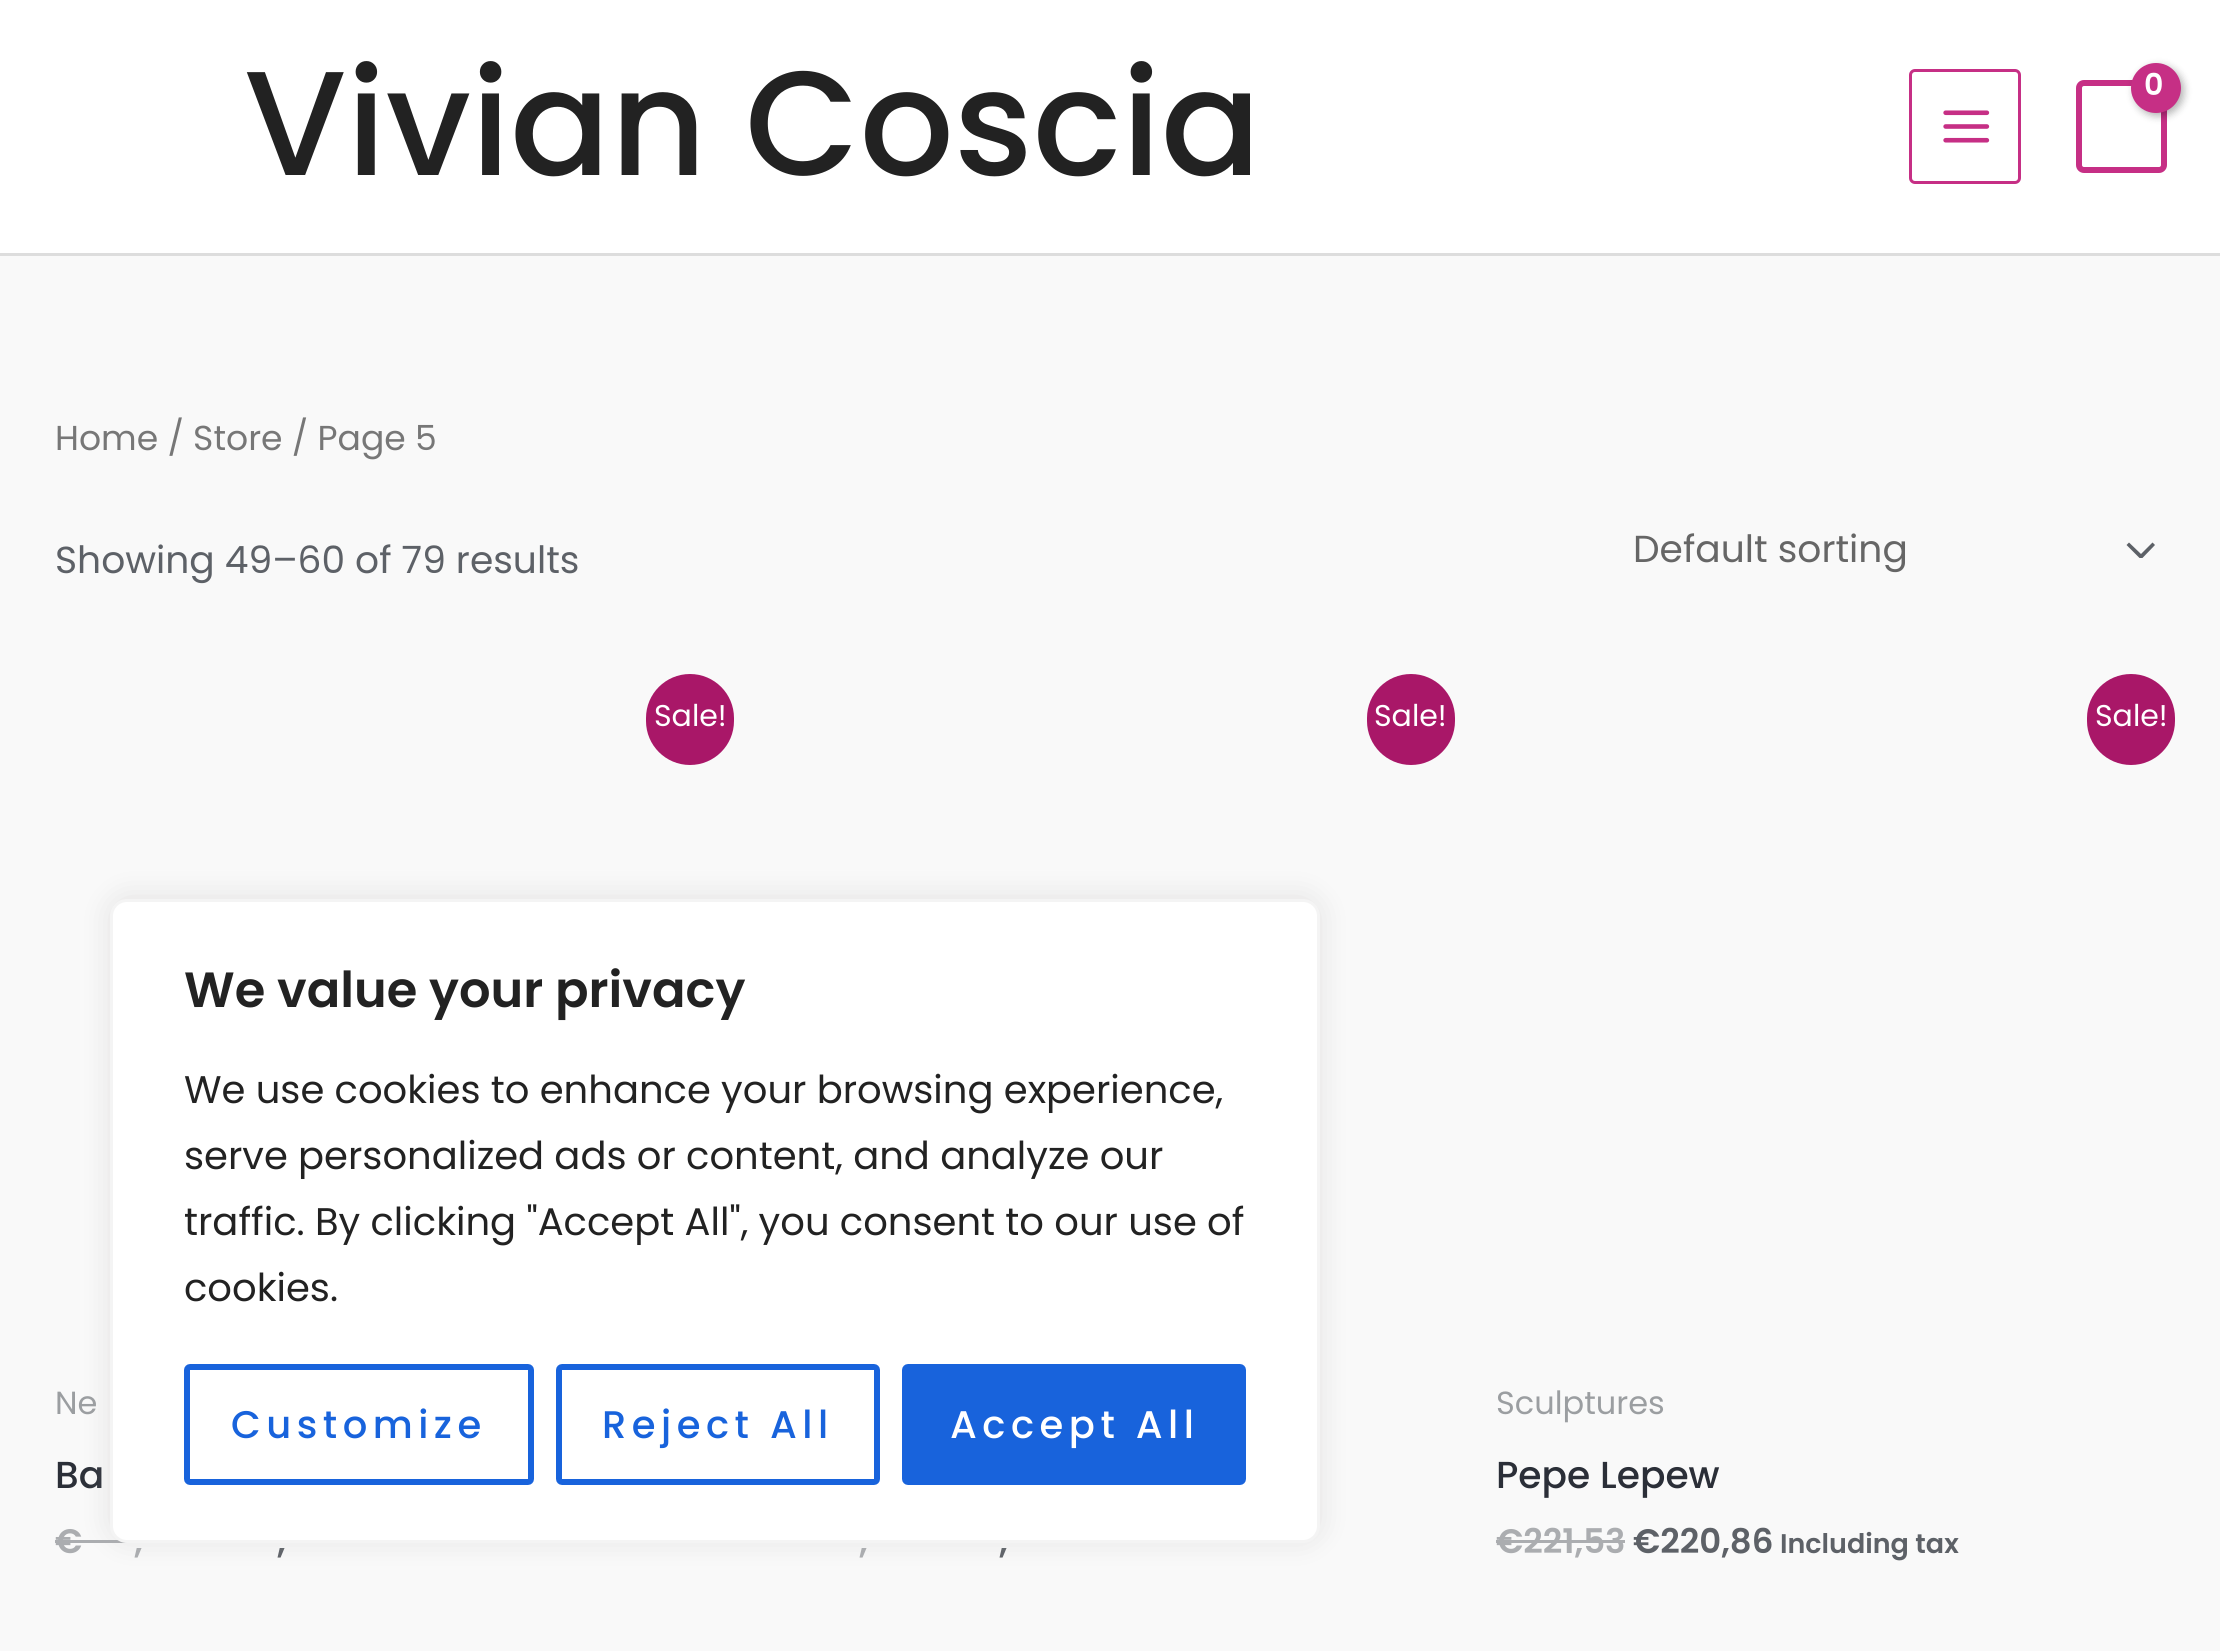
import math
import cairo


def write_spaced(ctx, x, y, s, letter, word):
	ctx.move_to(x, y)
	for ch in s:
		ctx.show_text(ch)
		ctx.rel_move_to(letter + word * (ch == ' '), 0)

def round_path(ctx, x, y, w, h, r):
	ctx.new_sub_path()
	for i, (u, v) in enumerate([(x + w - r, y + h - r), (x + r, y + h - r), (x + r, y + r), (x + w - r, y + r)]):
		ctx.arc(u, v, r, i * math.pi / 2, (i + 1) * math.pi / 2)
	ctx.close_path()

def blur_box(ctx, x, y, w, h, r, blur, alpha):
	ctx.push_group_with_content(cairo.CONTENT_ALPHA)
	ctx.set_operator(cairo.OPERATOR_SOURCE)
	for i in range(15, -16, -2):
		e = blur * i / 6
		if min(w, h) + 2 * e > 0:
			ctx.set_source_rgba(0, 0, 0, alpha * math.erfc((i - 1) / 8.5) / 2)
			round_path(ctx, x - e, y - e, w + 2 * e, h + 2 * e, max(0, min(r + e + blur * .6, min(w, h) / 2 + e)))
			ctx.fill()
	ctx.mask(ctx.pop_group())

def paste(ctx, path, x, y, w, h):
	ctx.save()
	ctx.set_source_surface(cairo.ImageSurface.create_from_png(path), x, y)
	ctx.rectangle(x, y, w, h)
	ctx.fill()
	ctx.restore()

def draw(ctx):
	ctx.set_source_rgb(0.976, 0.976, 0.976)
	ctx.paint()
	ctx.set_source_rgb(1, 1, 1)
	ctx.rectangle(0, 0, 2220, 253)
	ctx.fill()
	ctx.set_source_rgb(0.867, 0.867, 0.867)
	ctx.rectangle(0, 253, 2220, 3)
	ctx.fill()
	ctx.select_font_face('Poppins Medium')
	ctx.set_font_size(148)
	ctx.set_source_rgb(0.133, 0.133, 0.133)
	ctx.move_to(244, 175)
	ctx.show_text('Vivian Coscia')
	round_path(ctx, 1910.5, 70.5, 109, 112, 4.5)
	ctx.set_source_rgb(0.776, 0.184, 0.522)
	ctx.set_line_width(3)
	ctx.stroke()
	paste(ctx, 'media/1.png', 1943, 110, 47, 33)
	round_path(ctx, 2079, 83, 85, 87, 5)
	ctx.set_line_width(6)
	ctx.stroke()
	ctx.set_source_rgb(0, 0, 0)
	blur_box(ctx, 2134, 66, 50, 50, 25, 4, 0.3)
	ctx.set_source_rgb(0.776, 0.184, 0.522)
	ctx.arc(2156, 88, 25, 0, 2 * math.pi)
	ctx.fill()
	ctx.select_font_face('Poppins SemiBold')
	ctx.set_font_size(30)
	ctx.set_source_rgb(1, 1, 1)
	write_spaced(ctx, 2144, 95, '0', -1, 0)
	ctx.select_font_face('Poppins')
	ctx.set_font_size(34.6)
	ctx.set_source_rgb(0.467, 0.467, 0.467)
	ctx.move_to(55, 450)
	ctx.show_text('Home / Store / Page 5')
	ctx.set_font_size(37.6)
	ctx.set_source_rgb(0.365, 0.38, 0.404)
	ctx.move_to(55, 573)
	ctx.show_text('Showing 49–60 of 79 results')
	ctx.save()
	ctx.rectangle(2126, 542, 30, 16)
	ctx.clip()
	ctx.new_path()
	ctx.move_to(2126.5, 545)
	ctx.line_to(2141, 559.5)
	ctx.line_to(2155, 545)
	ctx.line_to(2152.5, 542.5)
	ctx.line_to(2141, 554)
	ctx.line_to(2129, 542.5)
	ctx.close_path()
	ctx.fill()
	ctx.restore()
	ctx.set_source_rgb(0.4, 0.4, 0.4)
	ctx.move_to(1633, 562)
	ctx.show_text('Default sorting')
	ctx.set_source_rgb(0.663, 0.09, 0.408)
	round_path(ctx, 646, 674, 88, 91, 44)
	ctx.fill()
	ctx.set_font_size(30)
	ctx.set_source_rgb(1, 1, 1)
	ctx.move_to(654, 726)
	ctx.show_text('Sale!')
	ctx.set_font_size(32)
	ctx.set_source_rgb(0.608, 0.62, 0.631)
	ctx.move_to(55, 1414)
	ctx.show_text('Ne')
	ctx.select_font_face('Poppins Medium')
	ctx.set_font_size(37.6)
	ctx.set_source_rgb(0.169, 0.184, 0.22)
	ctx.move_to(55, 1488)
	ctx.show_text('Ba')
	ctx.select_font_face('Poppins SemiBold')
	ctx.set_font_size(34)
	ctx.set_source_rgb(0.671, 0.678, 0.69)
	ctx.move_to(55, 1553)
	ctx.show_text('€')
	ctx.rectangle(55, 1540, 72, 3)
	ctx.fill()
	ctx.move_to(134, 1553)
	ctx.show_text(',')
	ctx.set_source_rgb(0.365, 0.38, 0.404)
	ctx.move_to(277, 1553)
	ctx.show_text(',')
	ctx.set_source_rgb(0.663, 0.09, 0.408)
	round_path(ctx, 1367, 674, 88, 91, 44)
	ctx.fill()
	ctx.select_font_face('Poppins')
	ctx.set_font_size(30)
	ctx.set_source_rgb(1, 1, 1)
	ctx.move_to(1374, 726)
	ctx.show_text('Sale!')
	ctx.select_font_face('Poppins SemiBold')
	ctx.set_font_size(34)
	ctx.set_source_rgb(0.671, 0.678, 0.69)
	ctx.move_to(859, 1553)
	ctx.show_text(',')
	ctx.set_source_rgb(0.365, 0.38, 0.404)
	ctx.move_to(999, 1553)
	ctx.show_text(',')
	ctx.set_source_rgb(0.663, 0.09, 0.408)
	round_path(ctx, 2087, 674, 88, 91, 44)
	ctx.fill()
	ctx.select_font_face('Poppins')
	ctx.set_font_size(30)
	ctx.set_source_rgb(1, 1, 1)
	ctx.move_to(2095, 726)
	ctx.show_text('Sale!')
	ctx.set_font_size(32)
	ctx.set_source_rgb(0.608, 0.62, 0.631)
	ctx.move_to(1496, 1414)
	ctx.show_text('Sculptures')
	ctx.select_font_face('Poppins Medium')
	ctx.set_font_size(37.6)
	ctx.set_source_rgb(0.169, 0.184, 0.22)
	ctx.move_to(1496, 1488)
	ctx.show_text('Pepe Lepew')
	ctx.select_font_face('Poppins SemiBold')
	ctx.set_font_size(34)
	ctx.set_source_rgb(0.671, 0.678, 0.69)
	ctx.move_to(1496, 1553)
	ctx.show_text('€221,53')
	ctx.rectangle(1496, 1540, 129, 3)
	ctx.fill()
	ctx.set_source_rgb(0.365, 0.38, 0.404)
	ctx.move_to(1633, 1553)
	ctx.show_text('€220,86')
	ctx.set_font_size(27)
	ctx.move_to(1780, 1553)
	ctx.show_text('Including tax')
	ctx.set_source_rgb(0.675, 0.671, 0.671)
	blur_box(ctx, 110, 897, 1210, 643, 17, 14, 0.3)
	ctx.set_source_rgb(1, 1, 1)
	round_path(ctx, 111.5, 900.5, 1207, 641, 15.5)
	ctx.fill_preserve()
	ctx.set_source_rgb(0.957, 0.957, 0.957)
	ctx.set_line_width(3)
	ctx.stroke()
	ctx.set_font_size(49.5)
	ctx.set_source_rgb(0.133, 0.133, 0.133)
	ctx.move_to(184, 1007)
	ctx.show_text('We value your privacy')
	ctx.select_font_face('Poppins')
	ctx.set_font_size(38.5)
	for x, y, s in [
		(184, 1103, 'We use cookies to enhance your browsing experience,'),
		(184, 1169, 'serve personalized ads or content, and analyze our'),
		(184, 1235, 'traffic. By clicking "Accept All", you consent to our use of'),
		(184, 1301, 'cookies.'),
	]:
		ctx.move_to(x, y)
		ctx.show_text(s)
	round_path(ctx, 187, 1367, 344, 115, 3)
	ctx.set_source_rgb(0.094, 0.388, 0.863)
	ctx.set_line_width(6)
	ctx.stroke()
	ctx.select_font_face('Poppins Medium')
	write_spaced(ctx, 231, 1438, 'Customize', 5.5, 0)
	round_path(ctx, 559, 1367, 318, 115, 3)
	ctx.stroke()
	write_spaced(ctx, 602, 1438, 'Reject All', 5.5, 0)
	round_path(ctx, 905, 1367, 338, 115, 3)
	ctx.fill_preserve()
	ctx.stroke()
	ctx.set_source_rgb(1, 1, 1)
	write_spaced(ctx, 950, 1438, 'Accept All', 5.5, 0)


surface = cairo.ImageSurface(cairo.FORMAT_RGB24, 2220, 1651)
ctx = cairo.Context(surface)
options = cairo.FontOptions()
options.set_hint_metrics(cairo.HINT_METRICS_OFF)
options.set_hint_style(cairo.HINT_STYLE_NONE)
ctx.set_font_options(options)
ctx.set_miter_limit(4)
draw(ctx)
surface.write_to_png('image.png')
